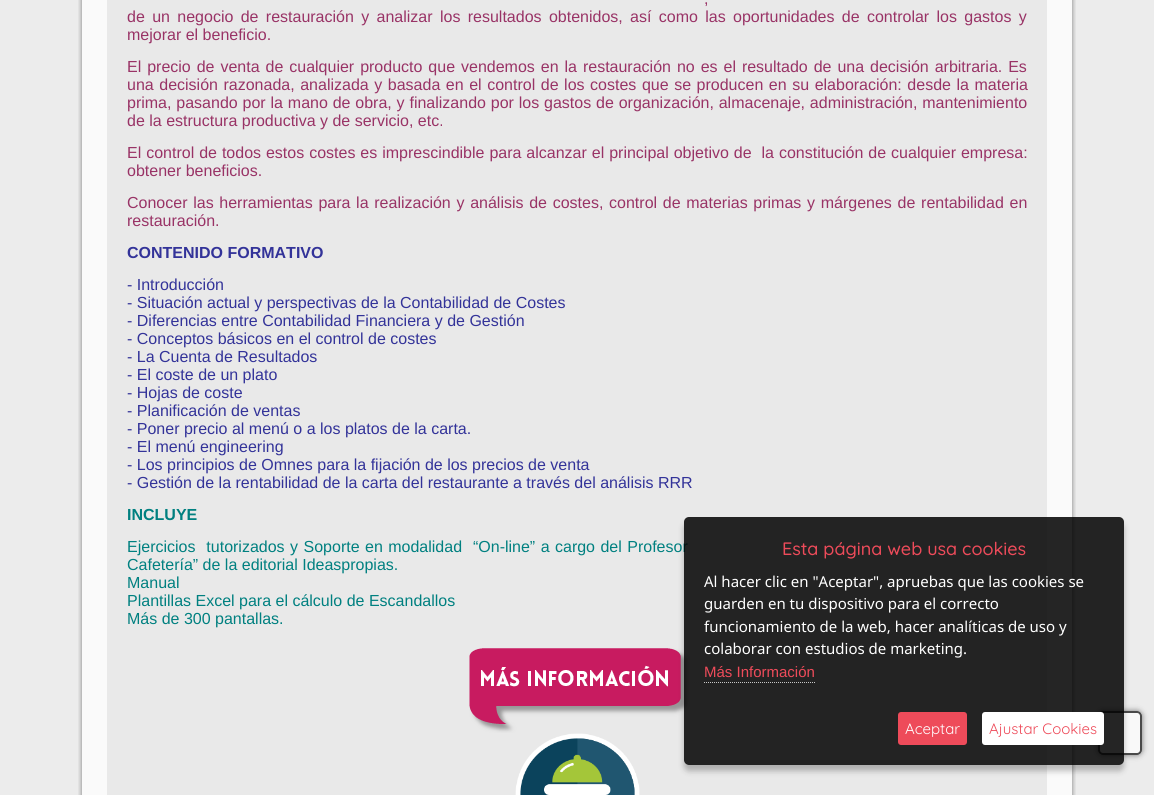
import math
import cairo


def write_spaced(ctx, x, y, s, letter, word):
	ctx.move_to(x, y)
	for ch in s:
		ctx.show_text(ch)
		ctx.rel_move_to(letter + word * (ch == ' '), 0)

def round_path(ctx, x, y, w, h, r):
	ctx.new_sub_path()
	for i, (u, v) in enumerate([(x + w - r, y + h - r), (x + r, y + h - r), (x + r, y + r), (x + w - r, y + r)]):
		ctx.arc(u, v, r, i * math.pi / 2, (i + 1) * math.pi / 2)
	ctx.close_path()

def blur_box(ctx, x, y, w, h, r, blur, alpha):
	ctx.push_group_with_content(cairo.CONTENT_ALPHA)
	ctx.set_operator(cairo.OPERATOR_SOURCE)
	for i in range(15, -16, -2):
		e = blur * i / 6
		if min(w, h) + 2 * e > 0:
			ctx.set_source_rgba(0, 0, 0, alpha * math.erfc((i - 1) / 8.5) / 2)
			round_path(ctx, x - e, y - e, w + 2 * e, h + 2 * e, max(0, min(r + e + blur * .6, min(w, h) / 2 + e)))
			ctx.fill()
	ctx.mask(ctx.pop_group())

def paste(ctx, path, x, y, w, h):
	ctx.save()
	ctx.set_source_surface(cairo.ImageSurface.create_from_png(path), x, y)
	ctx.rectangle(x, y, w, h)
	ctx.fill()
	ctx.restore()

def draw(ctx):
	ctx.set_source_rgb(0.922, 0.922, 0.922)
	ctx.paint()
	paste(ctx, 'media/1.png', 78, 0, 998, 795)
	ctx.set_source_rgb(0.914, 0.914, 0.914)
	ctx.rectangle(107, 0, 940, 795)
	ctx.fill()
	ctx.select_font_face('Liberation Sans')
	ctx.set_font_size(16)
	ctx.set_source_rgb(0.6, 0.2, 0.4)
	ctx.move_to(704, 4)
	ctx.show_text(',')
	write_spaced(ctx, 127, 22, 'de un negocio de restauración y analizar los resultados obtenidos, así como las oportunidades de controlar los gastos y', 0, 2.9)
	ctx.move_to(127, 40)
	ctx.show_text('mejorar el beneficio.')
	write_spaced(ctx, 127, 72, 'El precio de venta de cualquier producto que vendemos en la restauración no es el resultado de una decisión arbitraria. Es', 0, 1.5)
	write_spaced(ctx, 127, 90, 'una decisión razonada, analizada y basada en el control de los costes que se producen en su elaboración: desde la materia', 0, 1.1)
	write_spaced(ctx, 127, 108, 'prima, pasando por la mano de obra, y finalizando por los gastos de organización, almacenaje, administración, mantenimiento', 0, 0.4)
	ctx.move_to(127, 126)
	ctx.show_text('de la estructura productiva y de servicio, etc.')
	write_spaced(ctx, 127, 158, 'El control de todos estos costes es imprescindible para alcanzar el principal objetivo de  la constitución de cualquier empresa:', 0, 0.5)
	ctx.move_to(127, 176)
	ctx.show_text('obtener beneficios.')
	write_spaced(ctx, 127, 208, 'Conocer las herramientas para la realización y análisis de costes, control de materias primas y márgenes de rentabilidad en', 0, 1.25)
	ctx.move_to(127, 226)
	ctx.show_text('restauración.')
	ctx.select_font_face('Liberation Sans', cairo.FONT_SLANT_NORMAL, cairo.FONT_WEIGHT_BOLD)
	ctx.set_source_rgb(0.2, 0.2, 0.6)
	ctx.move_to(127, 258)
	ctx.show_text('CONTENIDO FORMATIVO')
	ctx.select_font_face('Liberation Sans')
	for x, y, s in [
		(127, 290, '- Introducción'),
		(127, 308, '- Situación actual y perspectivas de la Contabilidad de Costes'),
		(127, 326, '- Diferencias entre Contabilidad Financiera y de Gestión'),
		(127, 344, '- Conceptos básicos en el control de costes'),
		(127, 362, '- La Cuenta de Resultados'),
		(127, 380, '- El coste de un plato'),
		(127, 398, '- Hojas de coste'),
		(127, 416, '- Planificación de ventas'),
		(127, 434, '- Poner precio al menú o a los platos de la carta.'),
		(127, 452, '- El menú engineering'),
		(127, 470, '- Los principios de Omnes para la fijación de los precios de venta'),
		(127, 488, '- Gestión de la rentabilidad de la carta del restaurante a través del análisis RRR'),
	]:
		ctx.move_to(x, y)
		ctx.show_text(s)
	ctx.select_font_face('Liberation Sans', cairo.FONT_SLANT_NORMAL, cairo.FONT_WEIGHT_BOLD)
	ctx.set_source_rgb(0, 0.502, 0.502)
	ctx.move_to(127, 520)
	ctx.show_text('INCLUYE')
	ctx.select_font_face('Liberation Sans')
	write_spaced(ctx, 127, 552, 'Ejercicios  tutorizados y Soporte en modalidad  “On-line” a cargo del Profesor', 0, 1)
	for x, y, s in [
		(127, 570, 'Cafetería” de la editorial Ideaspropias.'),
		(127, 588, 'Manual'),
		(127, 606, 'Plantillas Excel para el cálculo de Escandallos'),
		(127, 624, 'Más de 300 pantallas.'),
	]:
		ctx.move_to(x, y)
		ctx.show_text(s)
	paste(ctx, 'media/2.png', 469, 648, 221, 85)
	paste(ctx, 'media/3.png', 515, 733, 125, 62)
	ctx.save()
	ctx.set_fill_rule(cairo.FILL_RULE_EVEN_ODD)
	ctx.new_path()
	ctx.move_to(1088, 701)
	ctx.line_to(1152, 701)
	ctx.line_to(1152, 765)
	ctx.line_to(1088, 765)
	ctx.close_path()
	ctx.move_to(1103, 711)
	ctx.line_to(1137, 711)
	ctx.curve_to(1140, 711, 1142, 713, 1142, 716)
	ctx.line_to(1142, 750)
	ctx.curve_to(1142, 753, 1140, 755, 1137, 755)
	ctx.line_to(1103, 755)
	ctx.curve_to(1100, 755, 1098, 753, 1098, 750)
	ctx.line_to(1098, 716)
	ctx.curve_to(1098, 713, 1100, 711, 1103, 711)
	ctx.close_path()
	ctx.clip()
	ctx.set_source_rgb(0, 0, 0)
	blur_box(ctx, 1098, 711, 44, 44, 5, 3, 0.5)
	ctx.restore()
	ctx.set_source_rgba(1, 1, 1, 0.7)
	round_path(ctx, 1098, 711, 44, 44, 5)
	ctx.fill()
	round_path(ctx, 1099, 712, 42, 42, 4)
	ctx.set_source_rgba(0, 0, 0, 0.7)
	ctx.stroke()
	ctx.save()
	ctx.set_fill_rule(cairo.FILL_RULE_EVEN_ODD)
	ctx.new_path()
	ctx.move_to(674, 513)
	ctx.line_to(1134, 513)
	ctx.line_to(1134, 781)
	ctx.line_to(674, 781)
	ctx.close_path()
	ctx.move_to(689, 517)
	ctx.line_to(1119, 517)
	ctx.curve_to(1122, 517, 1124, 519, 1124, 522)
	ctx.line_to(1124, 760)
	ctx.curve_to(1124, 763, 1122, 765, 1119, 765)
	ctx.line_to(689, 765)
	ctx.curve_to(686, 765, 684, 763, 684, 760)
	ctx.line_to(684, 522)
	ctx.curve_to(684, 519, 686, 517, 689, 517)
	ctx.close_path()
	ctx.clip()
	ctx.set_source_rgb(0, 0, 0)
	blur_box(ctx, 684, 523, 440, 248, 5, 3, 0.25)
	ctx.restore()
	ctx.set_source_rgba(0, 0, 0, 0.85)
	round_path(ctx, 684, 517, 440, 248, 5)
	ctx.fill()
	ctx.select_font_face('Quicksand Medium')
	ctx.set_font_size(18)
	ctx.set_source_rgb(0.933, 0.294, 0.353)
	ctx.move_to(782, 555)
	ctx.show_text('Esta página web usa cookies')
	ctx.select_font_face('Noto Sans')
	ctx.set_font_size(15)
	ctx.set_source_rgb(1, 1, 1)
	for x, y, s in [
		(704, 587, 'Al hacer clic en "Aceptar", apruebas que las cookies se'),
		(704, 609, 'guarden en tu dispositivo para el correcto'),
		(704, 632, 'funcionamiento de la web, hacer analíticas de uso y'),
		(704, 654, 'colaborar con estudios de marketing.'),
	]:
		ctx.move_to(x, y)
		ctx.show_text(s)
	ctx.select_font_face('Liberation Sans')
	ctx.set_source_rgb(0.933, 0.294, 0.353)
	ctx.move_to(704, 677)
	ctx.show_text('Más Información')
	ctx.new_path()
	ctx.move_to(704, 682.5)
	ctx.line_to(815, 682.5)
	ctx.set_source_rgb(0.784, 0.784, 0.784)
	ctx.set_line_width(1)
	ctx.set_dash([1, 1])
	ctx.stroke()
	ctx.set_source_rgb(0.933, 0.294, 0.353)
	round_path(ctx, 898, 712, 69, 33, 3)
	ctx.fill()
	ctx.select_font_face('Quicksand')
	ctx.set_source_rgb(1, 1, 1)
	ctx.move_to(905, 734)
	ctx.show_text('Aceptar')
	round_path(ctx, 982, 712, 122, 33, 3)
	ctx.fill()
	ctx.set_source_rgb(0.933, 0.294, 0.353)
	ctx.move_to(989, 734)
	ctx.show_text('Ajustar Cookies')


surface = cairo.ImageSurface(cairo.FORMAT_RGB24, 1154, 795)
ctx = cairo.Context(surface)
options = cairo.FontOptions()
options.set_hint_metrics(cairo.HINT_METRICS_OFF)
options.set_hint_style(cairo.HINT_STYLE_NONE)
ctx.set_font_options(options)
ctx.set_miter_limit(4)
draw(ctx)
surface.write_to_png('image.png')
